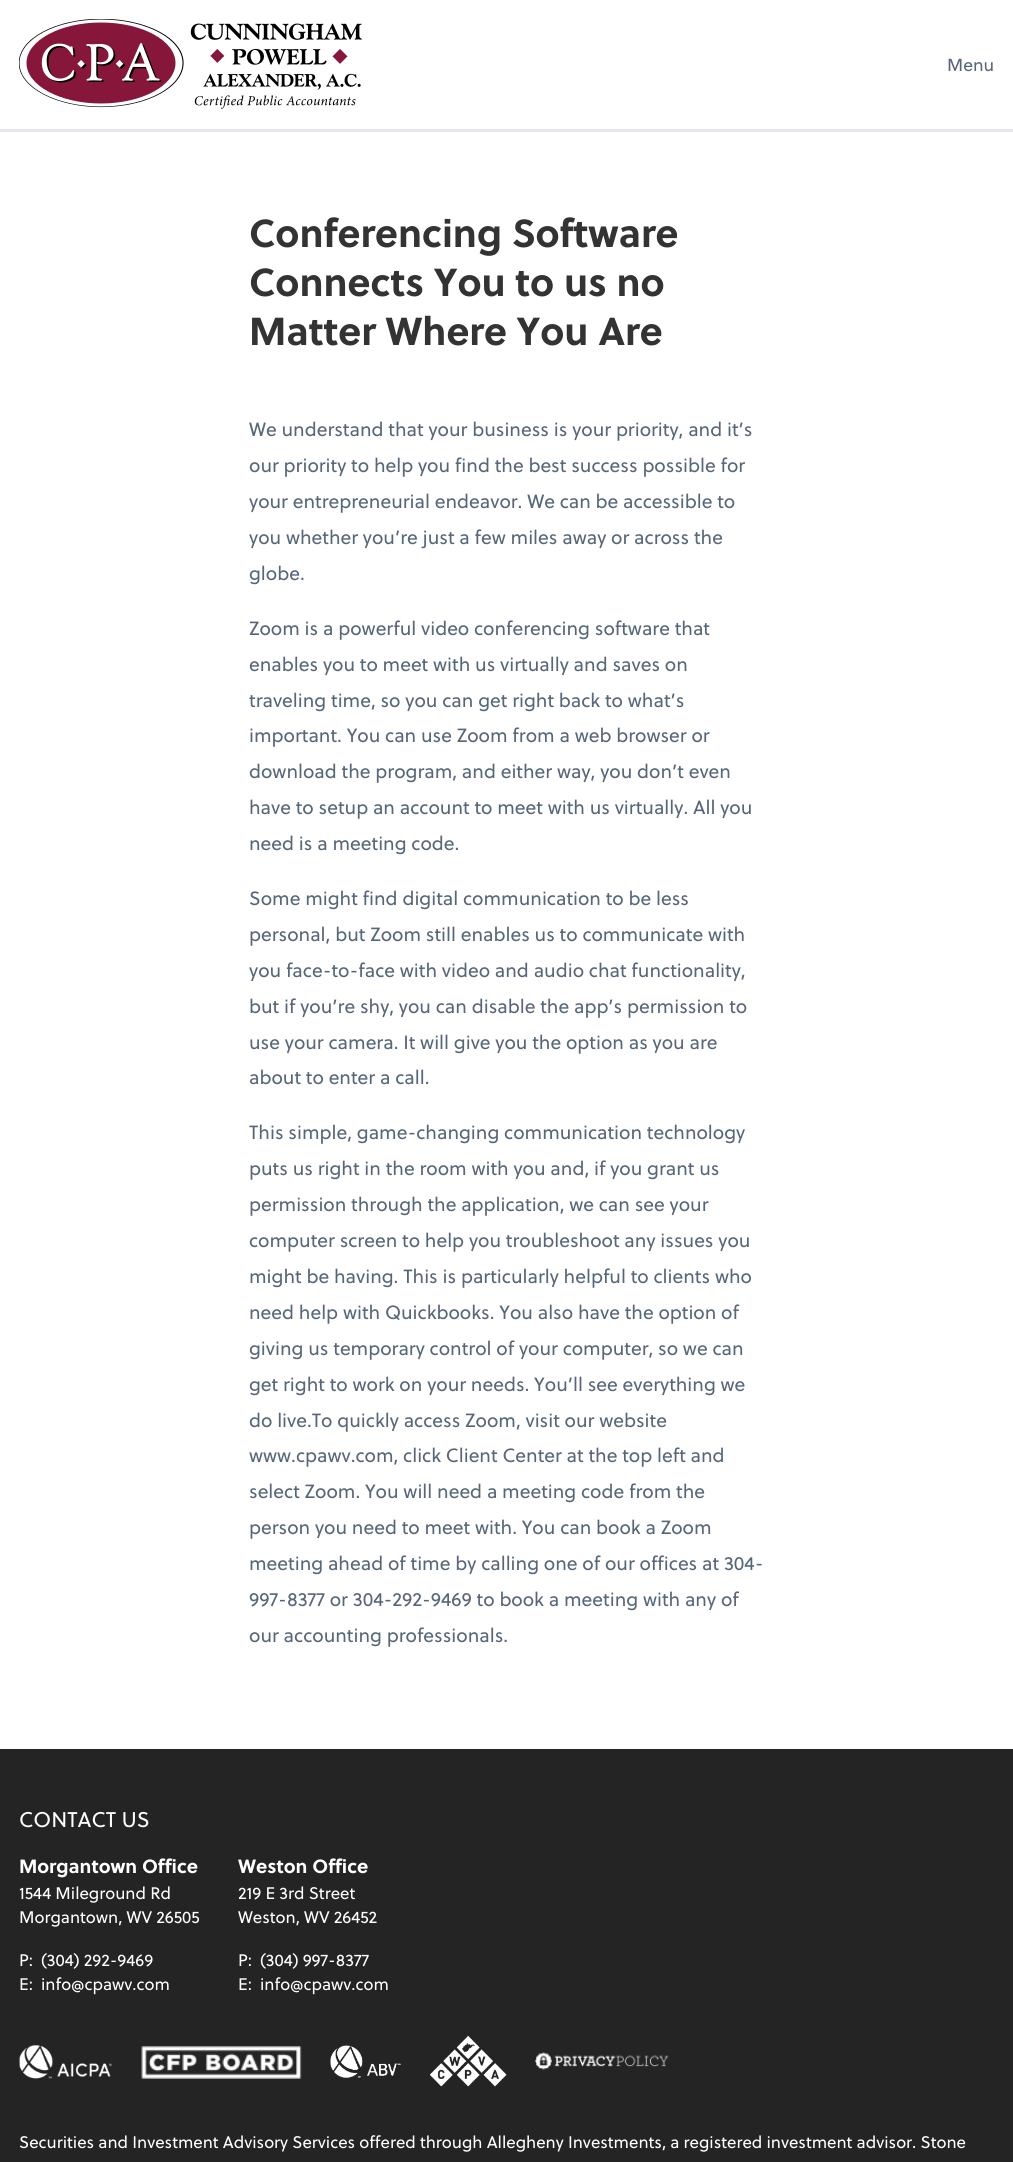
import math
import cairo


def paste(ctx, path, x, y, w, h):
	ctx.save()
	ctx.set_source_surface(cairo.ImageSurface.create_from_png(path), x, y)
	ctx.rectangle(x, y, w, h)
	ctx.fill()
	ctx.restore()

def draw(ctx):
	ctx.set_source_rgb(1, 1, 1)
	ctx.paint()
	ctx.set_source_rgb(0.898, 0.906, 0.922)
	ctx.rectangle(0, 129, 1013, 3)
	ctx.fill()
	paste(ctx, 'media/1.png', 19, 19, 343, 90)
	ctx.select_font_face('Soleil')
	ctx.set_font_size(17.5)
	ctx.set_source_rgb(0.341, 0.404, 0.478)
	ctx.move_to(947, 71)
	ctx.show_text('Menu')
	ctx.select_font_face('Soleil', cairo.FONT_SLANT_NORMAL, cairo.FONT_WEIGHT_BOLD)
	ctx.set_font_size(39)
	ctx.set_source_rgb(0.2, 0.2, 0.2)
	for x, y, s in [
		(249, 247, 'Conferencing Software'),
		(249, 296, 'Connects You to us no'),
		(249, 345, 'Matter Where You Are'),
	]:
		ctx.move_to(x, y)
		ctx.show_text(s)
	ctx.select_font_face('Soleil')
	ctx.set_font_size(19.15)
	ctx.set_source_rgb(0.341, 0.404, 0.478)
	for x, y, s in [
		(249, 436, 'We understand that your business is your priority, and it’s'),
		(249, 472, 'our priority to help you find the best success possible for'),
		(249, 508, 'your entrepreneurial endeavor. We can be accessible to'),
		(249, 544, 'you whether you’re just a few miles away or across the'),
		(249, 580, 'globe.'),
		(249, 635, 'Zoom is a powerful video conferencing software that'),
		(249, 671, 'enables you to meet with us virtually and saves on'),
		(249, 707, 'traveling time, so you can get right back to what’s'),
		(249, 742, 'important. You can use Zoom from a web browser or'),
		(249, 778, 'download the program, and either way, you don’t even'),
		(249, 814, 'have to setup an account to meet with us virtually. All you'),
		(249, 850, 'need is a meeting code.'),
		(249, 905, 'Some might find digital communication to be less'),
		(249, 941, 'personal, but Zoom still enables us to communicate with'),
		(249, 977, 'you face-to-face with video and audio chat functionality,'),
		(249, 1013, 'but if you’re shy, you can disable the app’s permission to'),
		(249, 1049, 'use your camera. It will give you the option as you are'),
		(249, 1084, 'about to enter a call.'),
		(249, 1139, 'This simple, game-changing communication technology'),
		(249, 1175, 'puts us right in the room with you and, if you grant us'),
		(249, 1211, 'permission through the application, we can see your'),
		(249, 1247, 'computer screen to help you troubleshoot any issues you'),
		(249, 1283, 'might be having. This is particularly helpful to clients who'),
		(249, 1319, 'need help with Quickbooks. You also have the option of'),
		(249, 1355, 'giving us temporary control of your computer, so we can'),
		(249, 1391, 'get right to work on your needs. You’ll see everything we'),
		(249, 1427, 'do live.To quickly access Zoom, visit our website'),
		(249, 1462, 'www.cpawv.com, click Client Center at the top left and'),
		(249, 1498, 'select Zoom. You will need a meeting code from the'),
		(249, 1534, 'person you need to meet with. You can book a Zoom'),
		(249, 1570, 'meeting ahead of time by calling one of our offices at 304-'),
		(249, 1606, '997-8377 or 304-292-9469 to book a meeting with any of'),
		(249, 1642, 'our accounting professionals.'),
	]:
		ctx.move_to(x, y)
		ctx.show_text(s)
	ctx.set_source_rgb(0.141, 0.141, 0.141)
	ctx.rectangle(0, 1749, 1013, 413)
	ctx.fill()
	ctx.set_font_size(21.25)
	ctx.set_source_rgb(1, 1, 1)
	ctx.move_to(19, 1827)
	ctx.show_text('CONTACT US')
	ctx.select_font_face('Soleil', cairo.FONT_SLANT_NORMAL, cairo.FONT_WEIGHT_BOLD)
	ctx.set_font_size(19.15)
	ctx.move_to(19, 1873)
	ctx.show_text('Morgantown Office')
	ctx.select_font_face('Soleil')
	ctx.set_font_size(16.75)
	for x, y, s in [
		(19, 1899, '1544 Mileground Rd'),
		(19, 1923, 'Morgantown, WV 26505'),
		(19, 1966, 'P:'),
		(41, 1966, '(304) 292-9469'),
		(19, 1990, 'E:'),
		(41, 1990, 'info@cpawv.com'),
	]:
		ctx.move_to(x, y)
		ctx.show_text(s)
	ctx.select_font_face('Soleil', cairo.FONT_SLANT_NORMAL, cairo.FONT_WEIGHT_BOLD)
	ctx.set_font_size(19.15)
	ctx.move_to(238, 1873)
	ctx.show_text('Weston Office')
	ctx.select_font_face('Soleil')
	ctx.set_font_size(16.75)
	for x, y, s in [
		(238, 1899, '219 E 3rd Street'),
		(238, 1923, 'Weston, WV 26452'),
		(238, 1966, 'P:'),
		(260, 1966, '(304) 997-8377'),
		(238, 1990, 'E:'),
		(260, 1990, 'info@cpawv.com'),
	]:
		ctx.move_to(x, y)
		ctx.show_text(s)
	paste(ctx, 'media/2.png', 19, 2045, 93, 34)
	paste(ctx, 'media/3.png', 141, 2046, 161, 33)
	paste(ctx, 'media/4.png', 330, 2045, 71, 33)
	paste(ctx, 'media/5.png', 430, 2035, 77, 52)
	paste(ctx, 'media/6.png', 535, 2052, 134, 18)
	ctx.move_to(19, 2148)
	ctx.show_text('Securities and Investment Advisory Services offered through Allegheny Investments, a registered investment advisor. Stone')


surface = cairo.ImageSurface(cairo.FORMAT_RGB24, 1013, 2162)
ctx = cairo.Context(surface)
options = cairo.FontOptions()
options.set_hint_metrics(cairo.HINT_METRICS_OFF)
options.set_hint_style(cairo.HINT_STYLE_NONE)
ctx.set_font_options(options)
ctx.set_miter_limit(4)
draw(ctx)
surface.write_to_png('image.png')
